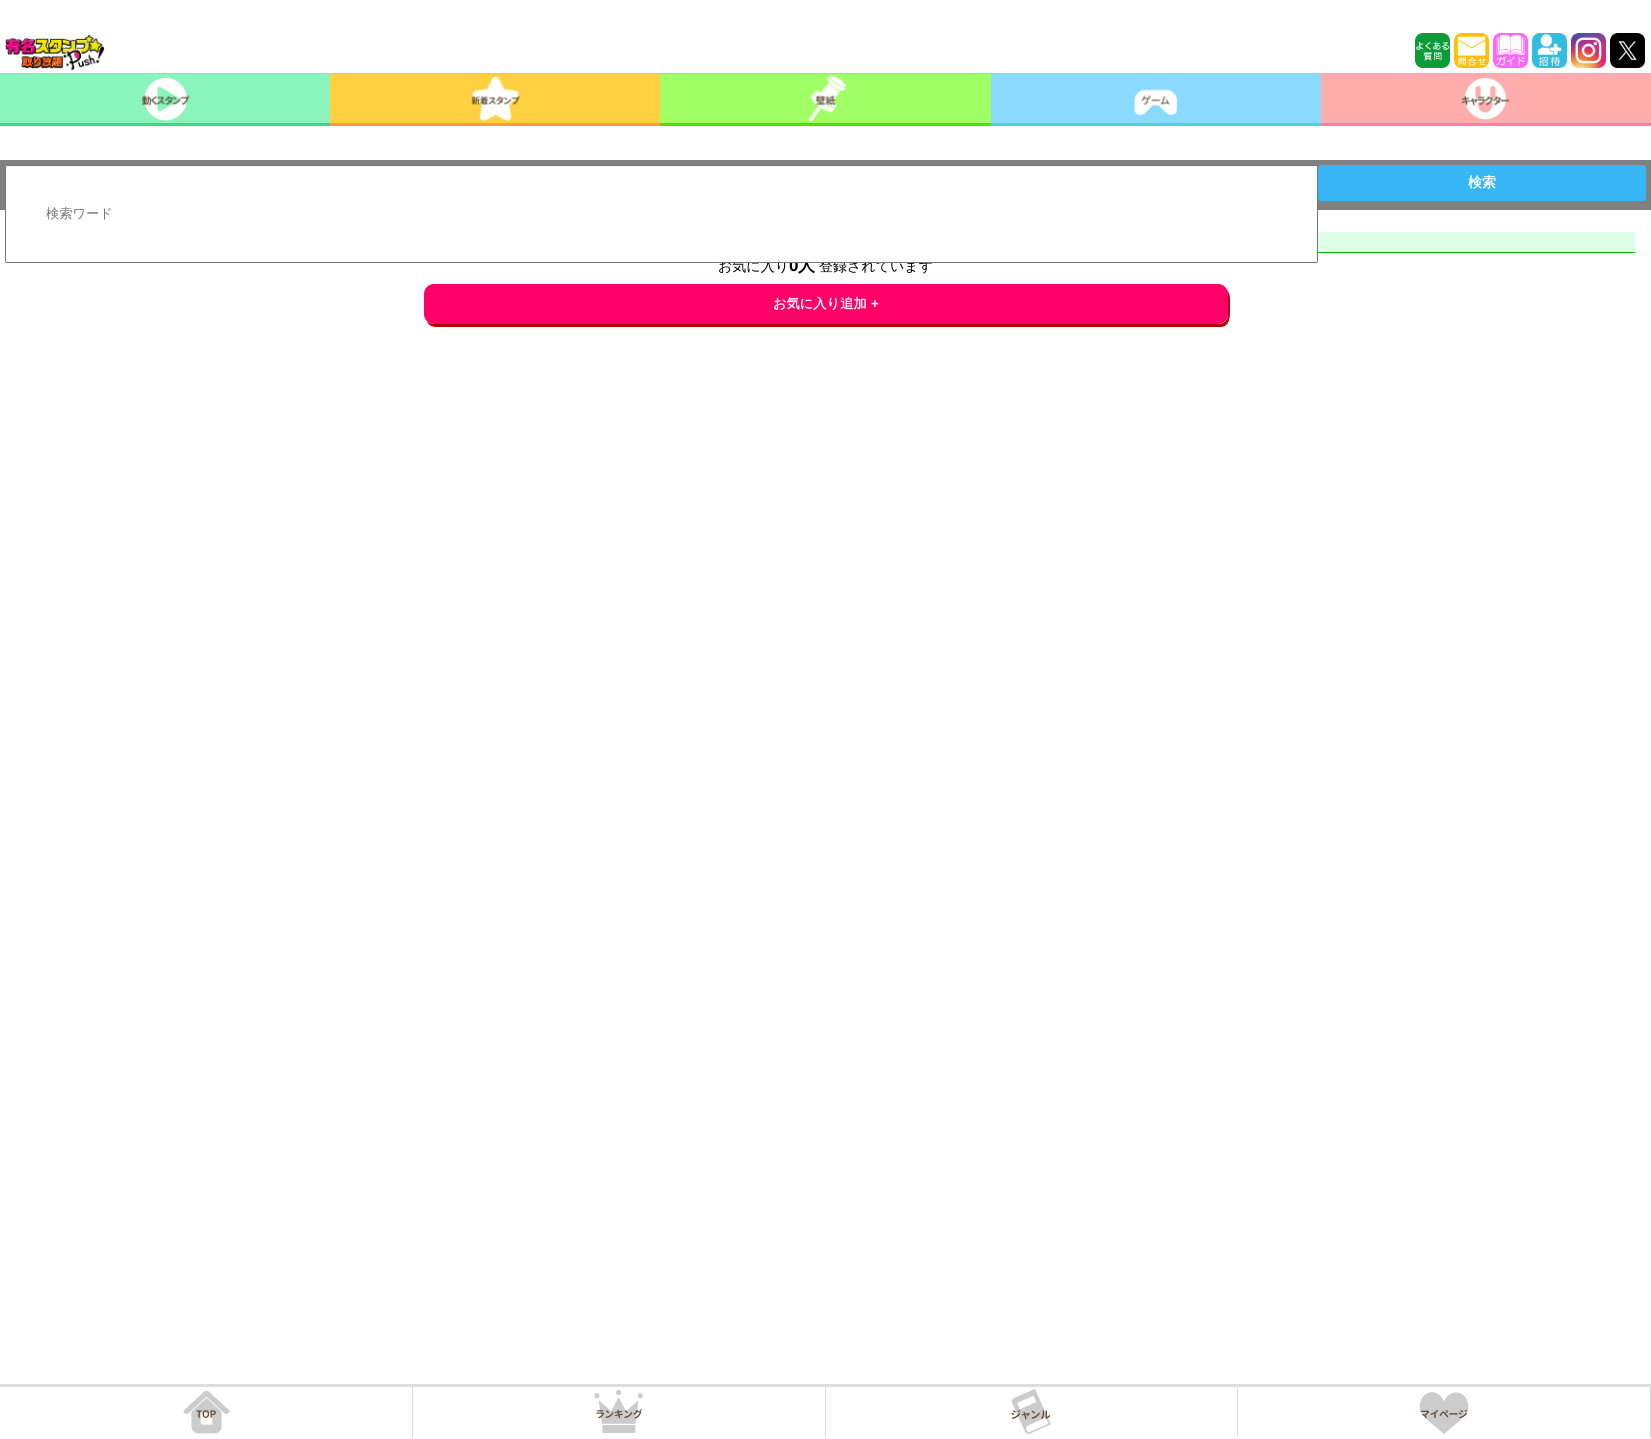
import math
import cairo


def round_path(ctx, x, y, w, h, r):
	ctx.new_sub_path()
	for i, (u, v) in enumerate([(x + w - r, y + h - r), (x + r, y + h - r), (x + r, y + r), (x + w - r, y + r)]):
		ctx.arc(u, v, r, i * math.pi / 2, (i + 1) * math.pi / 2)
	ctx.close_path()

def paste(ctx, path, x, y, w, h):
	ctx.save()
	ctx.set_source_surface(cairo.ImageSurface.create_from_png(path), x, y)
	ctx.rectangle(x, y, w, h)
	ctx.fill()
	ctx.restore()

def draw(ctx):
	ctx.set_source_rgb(1, 1, 1)
	ctx.paint()
	ctx.set_source_rgb(0.753, 0.753, 0.753)
	ctx.rectangle(0, 73, 1651, 1)
	ctx.fill()
	ctx.set_source_rgb(0.537, 0.957, 0.733)
	ctx.rectangle(0, 74, 330, 49)
	ctx.fill()
	ctx.set_source_rgb(0.231, 0.859, 0.525)
	ctx.rectangle(0, 123, 330, 3)
	ctx.fill()
	paste(ctx, 'media/1.png', 142, 77, 48, 44)
	ctx.set_source_rgb(1, 0.82, 0.251)
	ctx.rectangle(330, 74, 330, 49)
	ctx.fill()
	ctx.set_source_rgb(1, 0.604, 0.247)
	ctx.rectangle(330, 123, 330, 3)
	ctx.fill()
	paste(ctx, 'media/2.png', 471, 76, 49, 45)
	ctx.set_source_rgb(0.624, 1, 0.396)
	ctx.rectangle(660, 74, 331, 49)
	ctx.fill()
	ctx.set_source_rgb(0.329, 0.867, 0.004)
	ctx.rectangle(660, 123, 331, 3)
	ctx.fill()
	paste(ctx, 'media/3.png', 808, 75, 39, 47)
	ctx.set_source_rgb(0.541, 0.855, 1)
	ctx.rectangle(991, 74, 330, 49)
	ctx.fill()
	ctx.set_source_rgb(0.282, 0.827, 0.906)
	ctx.rectangle(991, 123, 330, 3)
	ctx.fill()
	paste(ctx, 'media/4.png', 1134, 89, 44, 27)
	ctx.set_source_rgb(1, 0.675, 0.675)
	ctx.rectangle(1321, 74, 330, 49)
	ctx.fill()
	ctx.set_source_rgb(1, 0.475, 0.647)
	ctx.rectangle(1321, 123, 330, 3)
	ctx.fill()
	paste(ctx, 'media/5.png', 1462, 77, 48, 43)
	paste(ctx, 'media/6.png', 5, 35, 100, 36)
	paste(ctx, 'media/7.png', 1415, 33, 35, 35)
	paste(ctx, 'media/8.png', 1454, 33, 35, 35)
	paste(ctx, 'media/9.png', 1493, 33, 35, 35)
	paste(ctx, 'media/10.png', 1532, 33, 35, 35)
	paste(ctx, 'media/11.png', 1571, 33, 35, 35)
	paste(ctx, 'media/12.png', 1610, 33, 35, 35)
	ctx.set_source_rgb(0.502, 0.502, 0.502)
	ctx.rectangle(0, 160, 1651, 50)
	ctx.fill()
	ctx.set_source_rgb(0.216, 0.714, 0.961)
	round_path(ctx, 1318, 165, 328, 36, 3)
	ctx.fill()
	ctx.select_font_face('WenQuanYi Zen Hei', cairo.FONT_SLANT_NORMAL, cairo.FONT_WEIGHT_BOLD)
	ctx.set_font_size(14)
	ctx.set_source_rgb(1, 1, 1)
	ctx.move_to(1468, 187)
	ctx.show_text('検索')
	ctx.select_font_face('WenQuanYi Zen Hei Medium')
	ctx.set_source_rgb(0, 0, 0)
	ctx.move_to(718, 271)
	ctx.show_text('お気に入り')
	ctx.select_font_face('Liberation Sans', cairo.FONT_SLANT_NORMAL, cairo.FONT_WEIGHT_BOLD)
	ctx.set_font_size(17)
	ctx.move_to(789, 271)
	ctx.show_text('0')
	ctx.select_font_face('WenQuanYi Zen Hei', cairo.FONT_SLANT_NORMAL, cairo.FONT_WEIGHT_BOLD)
	ctx.move_to(798, 271)
	ctx.show_text('人')
	ctx.select_font_face('WenQuanYi Zen Hei Medium')
	ctx.set_font_size(14)
	ctx.move_to(819, 271)
	ctx.show_text('登録されています')
	ctx.set_source_rgb(1, 1, 1)
	round_path(ctx, 5.5, 165.5, 1312, 97, 1.5)
	ctx.fill_preserve()
	ctx.set_source_rgb(0.463, 0.463, 0.463)
	ctx.set_line_width(1)
	ctx.stroke()
	ctx.set_font_size(13.25)
	ctx.set_source_rgb(0.459, 0.459, 0.459)
	ctx.move_to(46, 218)
	ctx.show_text('検索ワード')
	ctx.set_source_rgb(0.871, 1, 0.906)
	ctx.rectangle(1318, 232, 317, 20)
	ctx.fill()
	ctx.set_source_rgb(0.047, 0.733, 0)
	ctx.rectangle(1318, 252, 317, 1)
	ctx.fill()
	ctx.set_source_rgb(0.694, 0.027, 0.027)
	ctx.new_path()
	ctx.move_to(427, 321)
	ctx.curve_to(428, 325, 432, 327, 436, 327)
	ctx.line_to(1220, 327)
	ctx.curve_to(1231, 327, 1230, 315, 1230, 307)
	ctx.curve_to(1230, 302, 1231, 294, 1227, 290)
	ctx.line_to(1228, 294)
	ctx.line_to(1228, 314)
	ctx.curve_to(1228, 320, 1224, 324, 1218, 324)
	ctx.line_to(434, 324)
	ctx.curve_to(431, 324, 429, 323, 427, 321)
	ctx.close_path()
	ctx.fill()
	ctx.set_source_rgb(1, 0, 0.408)
	round_path(ctx, 424, 284, 804, 40, 10)
	ctx.fill()
	ctx.select_font_face('WenQuanYi Zen Hei', cairo.FONT_SLANT_NORMAL, cairo.FONT_WEIGHT_BOLD)
	ctx.set_source_rgb(1, 1, 1)
	ctx.move_to(773, 308)
	ctx.show_text('お気に入り追加')
	ctx.select_font_face('Liberation Sans', cairo.FONT_SLANT_NORMAL, cairo.FONT_WEIGHT_BOLD)
	ctx.move_to(871, 308)
	ctx.show_text('+')
	ctx.set_source_rgb(0.867, 0.867, 0.867)
	ctx.new_path()
	ctx.move_to(0, 1384)
	ctx.line_to(413, 1384)
	ctx.line_to(412, 1387)
	ctx.line_to(0, 1387)
	ctx.close_path()
	ctx.fill()
	ctx.set_source_rgb(0.859, 0.859, 0.859)
	ctx.new_path()
	ctx.move_to(413, 1384)
	ctx.line_to(413, 1437)
	ctx.line_to(412, 1437)
	ctx.line_to(412, 1387)
	ctx.close_path()
	ctx.fill()
	paste(ctx, 'media/13.png', 183, 1390, 47, 44)
	ctx.set_source_rgb(0.867, 0.867, 0.867)
	ctx.new_path()
	ctx.move_to(413, 1384)
	ctx.line_to(826, 1384)
	ctx.line_to(825, 1387)
	ctx.line_to(413, 1387)
	ctx.close_path()
	ctx.fill()
	ctx.set_source_rgb(0.859, 0.859, 0.859)
	ctx.new_path()
	ctx.move_to(826, 1384)
	ctx.line_to(826, 1437)
	ctx.line_to(825, 1437)
	ctx.line_to(825, 1387)
	ctx.close_path()
	ctx.fill()
	paste(ctx, 'media/14.png', 594, 1389, 49, 44)
	ctx.set_source_rgb(0.867, 0.867, 0.867)
	ctx.new_path()
	ctx.move_to(826, 1384)
	ctx.line_to(1238, 1384)
	ctx.line_to(1237, 1387)
	ctx.line_to(826, 1387)
	ctx.close_path()
	ctx.fill()
	ctx.set_source_rgb(0.859, 0.859, 0.859)
	ctx.new_path()
	ctx.move_to(1238, 1384)
	ctx.line_to(1238, 1437)
	ctx.line_to(1237, 1437)
	ctx.line_to(1237, 1387)
	ctx.close_path()
	ctx.fill()
	paste(ctx, 'media/15.png', 1011, 1389, 40, 45)
	ctx.set_source_rgb(0.867, 0.867, 0.867)
	ctx.new_path()
	ctx.move_to(1238, 1384)
	ctx.line_to(1651, 1384)
	ctx.line_to(1650, 1387)
	ctx.line_to(1238, 1387)
	ctx.close_path()
	ctx.fill()
	ctx.set_source_rgb(0.859, 0.859, 0.859)
	ctx.new_path()
	ctx.move_to(1651, 1384)
	ctx.line_to(1651, 1437)
	ctx.line_to(1650, 1437)
	ctx.line_to(1650, 1387)
	ctx.close_path()
	ctx.fill()
	paste(ctx, 'media/16.png', 1419, 1392, 50, 42)


surface = cairo.ImageSurface(cairo.FORMAT_RGB24, 1651, 1439)
ctx = cairo.Context(surface)
options = cairo.FontOptions()
options.set_hint_metrics(cairo.HINT_METRICS_OFF)
options.set_hint_style(cairo.HINT_STYLE_NONE)
ctx.set_font_options(options)
ctx.set_miter_limit(4)
draw(ctx)
surface.write_to_png('image.png')
